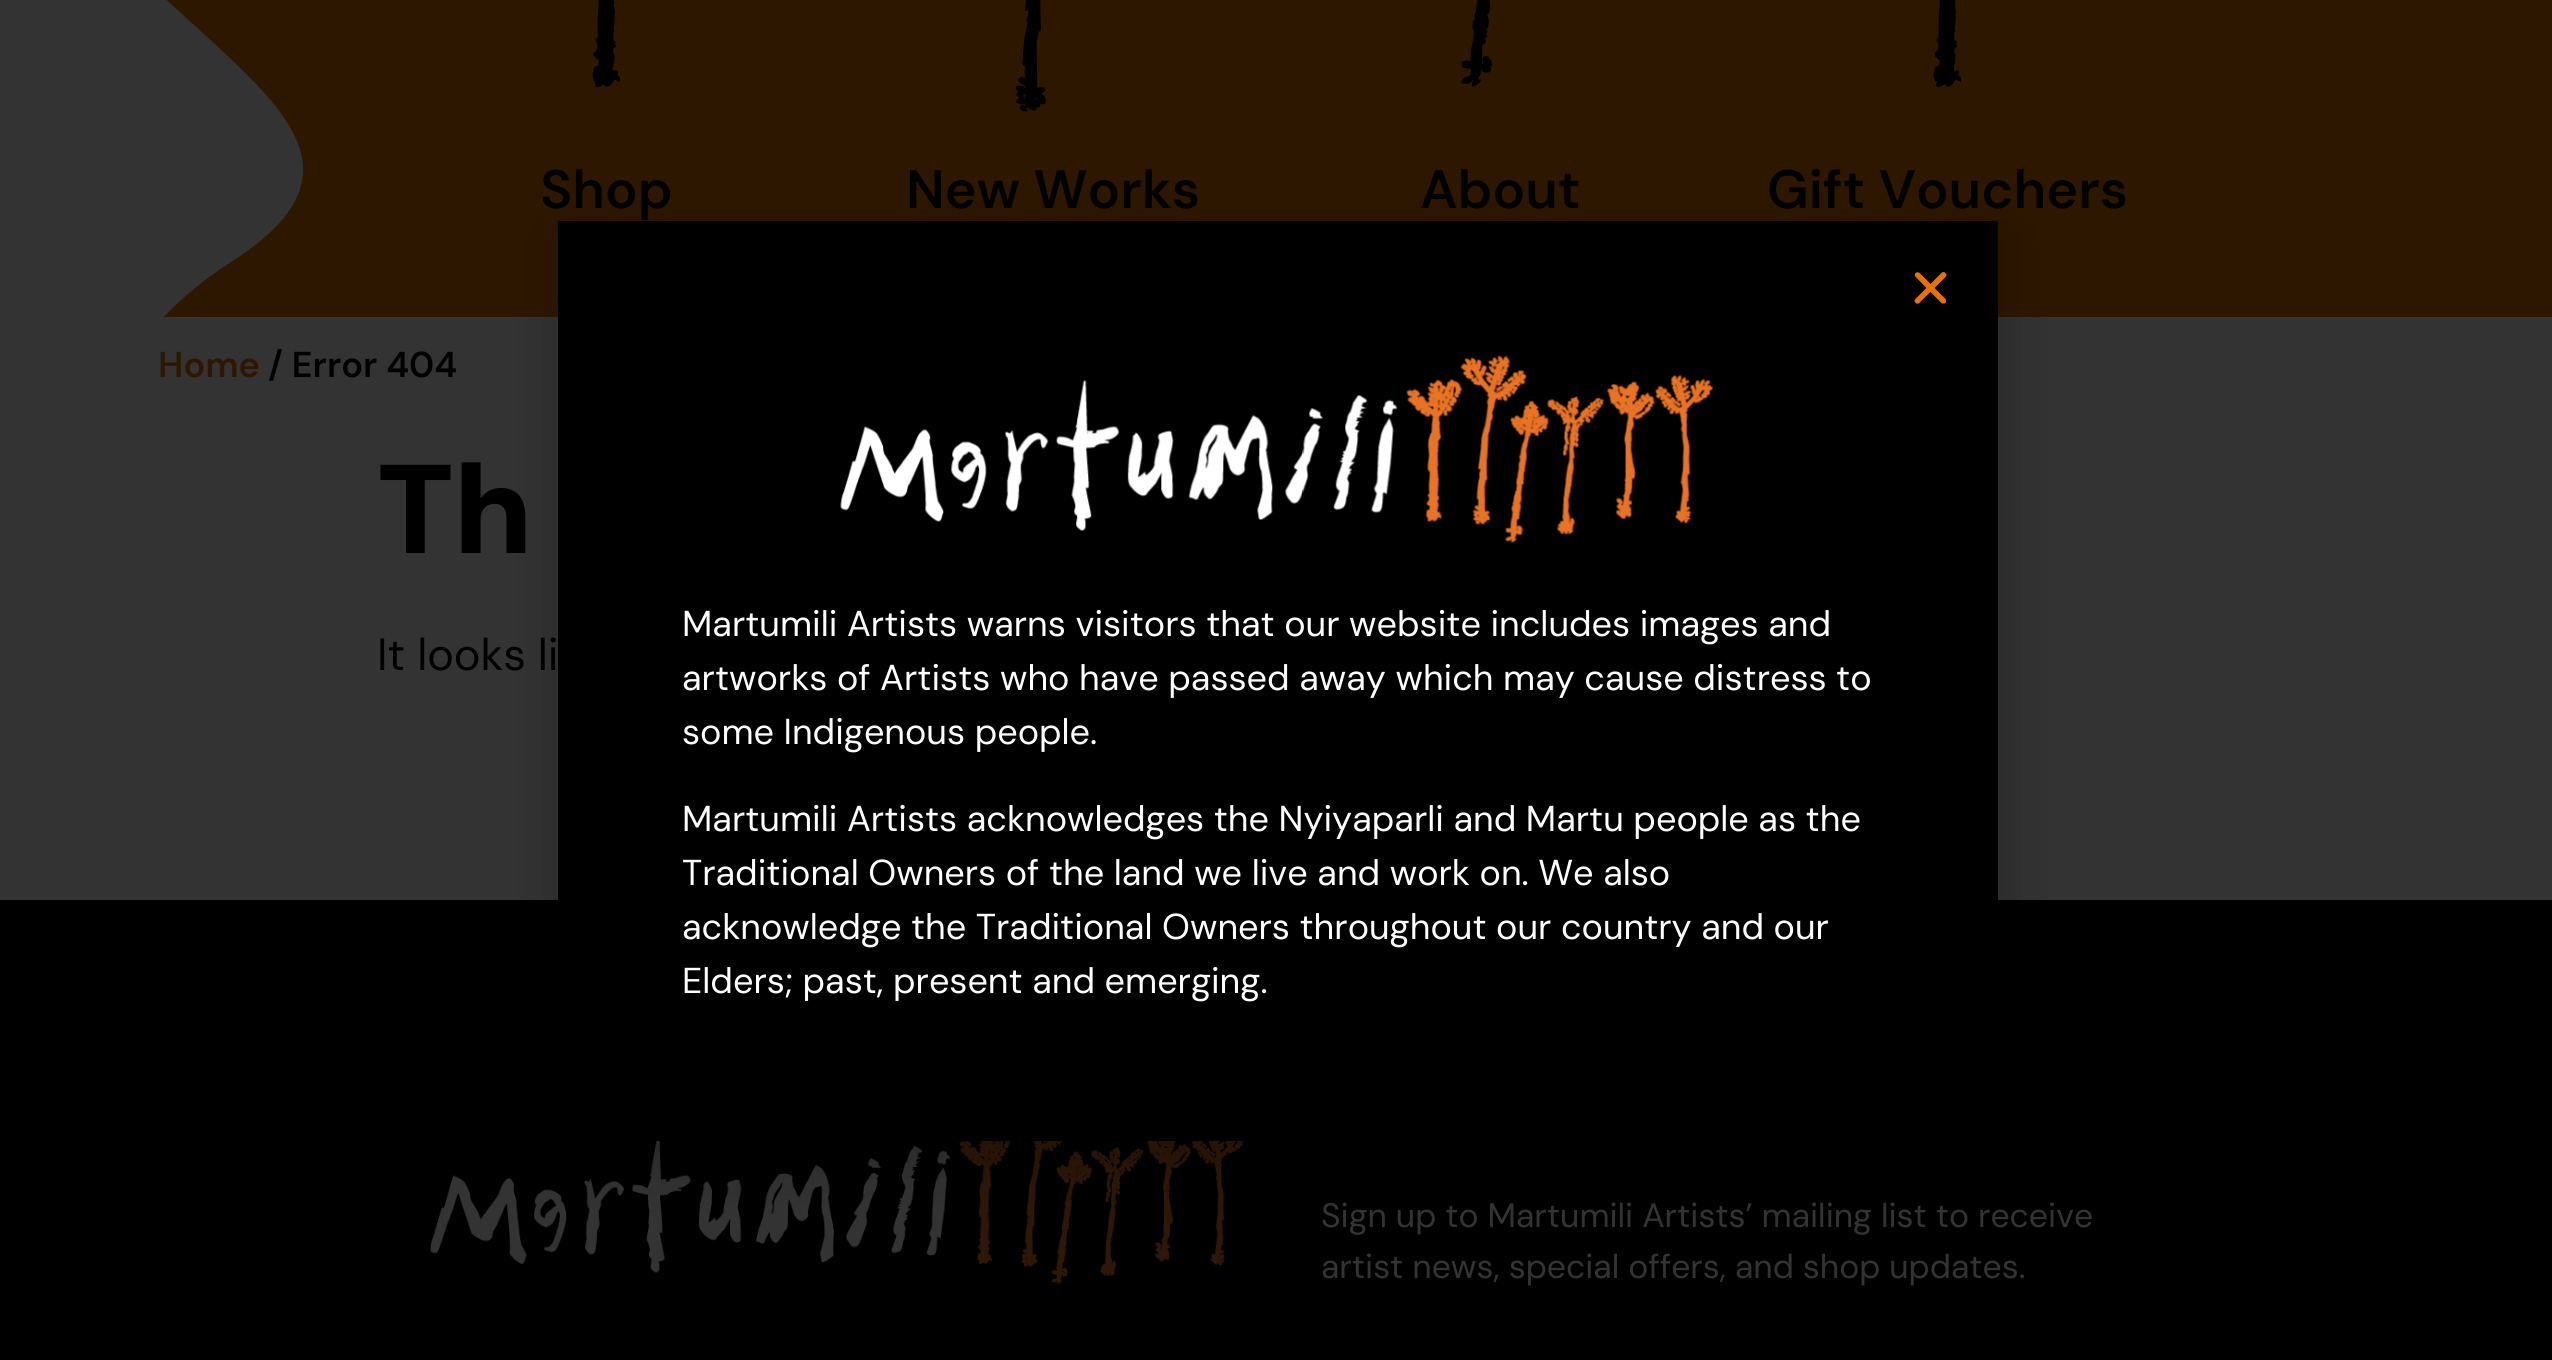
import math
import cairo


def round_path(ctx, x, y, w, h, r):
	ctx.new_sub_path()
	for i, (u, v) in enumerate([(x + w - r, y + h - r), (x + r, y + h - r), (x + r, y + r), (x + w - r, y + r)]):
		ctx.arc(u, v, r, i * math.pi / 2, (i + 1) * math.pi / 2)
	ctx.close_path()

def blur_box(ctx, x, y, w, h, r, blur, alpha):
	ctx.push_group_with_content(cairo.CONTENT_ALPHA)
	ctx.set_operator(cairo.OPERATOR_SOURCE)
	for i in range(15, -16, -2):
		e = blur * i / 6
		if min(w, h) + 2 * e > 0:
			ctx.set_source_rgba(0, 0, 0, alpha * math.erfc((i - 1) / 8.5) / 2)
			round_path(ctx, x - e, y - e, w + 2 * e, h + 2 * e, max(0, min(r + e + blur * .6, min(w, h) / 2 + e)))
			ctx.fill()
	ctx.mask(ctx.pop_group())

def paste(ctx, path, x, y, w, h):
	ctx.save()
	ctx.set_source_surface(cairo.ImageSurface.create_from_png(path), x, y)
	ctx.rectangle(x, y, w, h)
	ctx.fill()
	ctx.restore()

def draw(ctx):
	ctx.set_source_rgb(0.2, 0.2, 0.2)
	ctx.paint()
	ctx.save()
	ctx.rectangle(0, 0, 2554, 317)
	ctx.clip()
	ctx.set_source_rgb(0.18, 0.09, 0)
	ctx.new_path()
	ctx.move_to(2, -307)
	ctx.curve_to(12, -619, 236, -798, 837, -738)
	ctx.curve_to(1351, -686, 1342, -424, 1711, -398)
	ctx.curve_to(2080, -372, 2214, -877, 2541, -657)
	ctx.curve_to(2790, -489, 2459, -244, 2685, 44)
	ctx.curve_to(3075, 541, 2452, 969, 1931, 754)
	ctx.curve_to(1317, 500, 705, 948, 377, 787)
	ctx.curve_to(20, 613, 41, 384, 231, 262)
	ctx.curve_to(483, 101, -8, 13, 2, -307)
	ctx.close_path()
	ctx.fill()
	ctx.restore()
	paste(ctx, 'media/1.png', 592, 0, 28, 88)
	ctx.select_font_face('DM Sans SemiBold')
	ctx.set_font_size(54)
	ctx.set_source_rgb(0, 0, 0)
	ctx.move_to(540, 208)
	ctx.show_text('Shop')
	paste(ctx, 'media/2.png', 1015, 0, 32, 112)
	ctx.move_to(906, 208)
	ctx.show_text('New Works')
	paste(ctx, 'media/3.png', 1461, 0, 32, 87)
	ctx.move_to(1420, 208)
	ctx.show_text('About')
	paste(ctx, 'media/1.png', 1933, 0, 28, 88)
	ctx.move_to(1767, 208)
	ctx.show_text('Gift Vouchers')
	ctx.set_font_size(36)
	ctx.set_source_rgb(0.18, 0.09, 0)
	ctx.move_to(158, 377)
	ctx.show_text('Home')
	ctx.set_source_rgb(0, 0, 0)
	ctx.move_to(268, 377)
	ctx.show_text('/ Error 404')
	ctx.select_font_face('DM Sans Black')
	ctx.set_font_size(126)
	ctx.move_to(377, 553)
	ctx.show_text('Th')
	ctx.select_font_face('DM Sans')
	ctx.set_font_size(45)
	ctx.move_to(377, 670)
	ctx.show_text('It looks li')
	ctx.rectangle(0, 900, 2552, 460)
	ctx.fill()
	paste(ctx, 'media/6.png', 430, 1141, 815, 143)
	ctx.set_source_rgb(0, 0, 0)
	blur_box(ctx, 556, 232, 1453, 934, 0, 26, 0.2)
	ctx.set_source_rgb(0, 0, 0)
	ctx.rectangle(558, 221, 1440, 679)
	ctx.fill()
	paste(ctx, 'media/4.png', 1914, 272, 33, 32)
	paste(ctx, 'media/5.png', 840, 355, 874, 188)
	ctx.set_font_size(36)
	ctx.set_source_rgb(1, 1, 1)
	for x, y, s in [
		(682, 636, 'Martumili Artists warns visitors that our website includes images and'),
		(682, 690, 'artworks of Artists who have passed away which may cause distress to'),
		(682, 744, 'some Indigenous people.'),
		(682, 831, 'Martumili Artists acknowledges the Nyiyaparli and Martu people as the'),
		(682, 885, 'Traditional Owners of the land we live and work on. We also'),
		(682, 939, 'acknowledge the Traditional Owners throughout our country and our'),
		(682, 993, 'Elders; past, present and emerging.'),
	]:
		ctx.move_to(x, y)
		ctx.show_text(s)
	ctx.set_font_size(33.75)
	ctx.set_source_rgb(0.2, 0.2, 0.2)
	ctx.move_to(1321, 1227)
	ctx.show_text('Sign up to Martumili Artists’ mailing list to receive')
	ctx.move_to(1321, 1278)
	ctx.show_text('artist news, special offers, and shop updates.')


surface = cairo.ImageSurface(cairo.FORMAT_RGB24, 2552, 1360)
ctx = cairo.Context(surface)
options = cairo.FontOptions()
options.set_hint_metrics(cairo.HINT_METRICS_OFF)
options.set_hint_style(cairo.HINT_STYLE_NONE)
ctx.set_font_options(options)
ctx.set_miter_limit(4)
draw(ctx)
surface.write_to_png('image.png')
